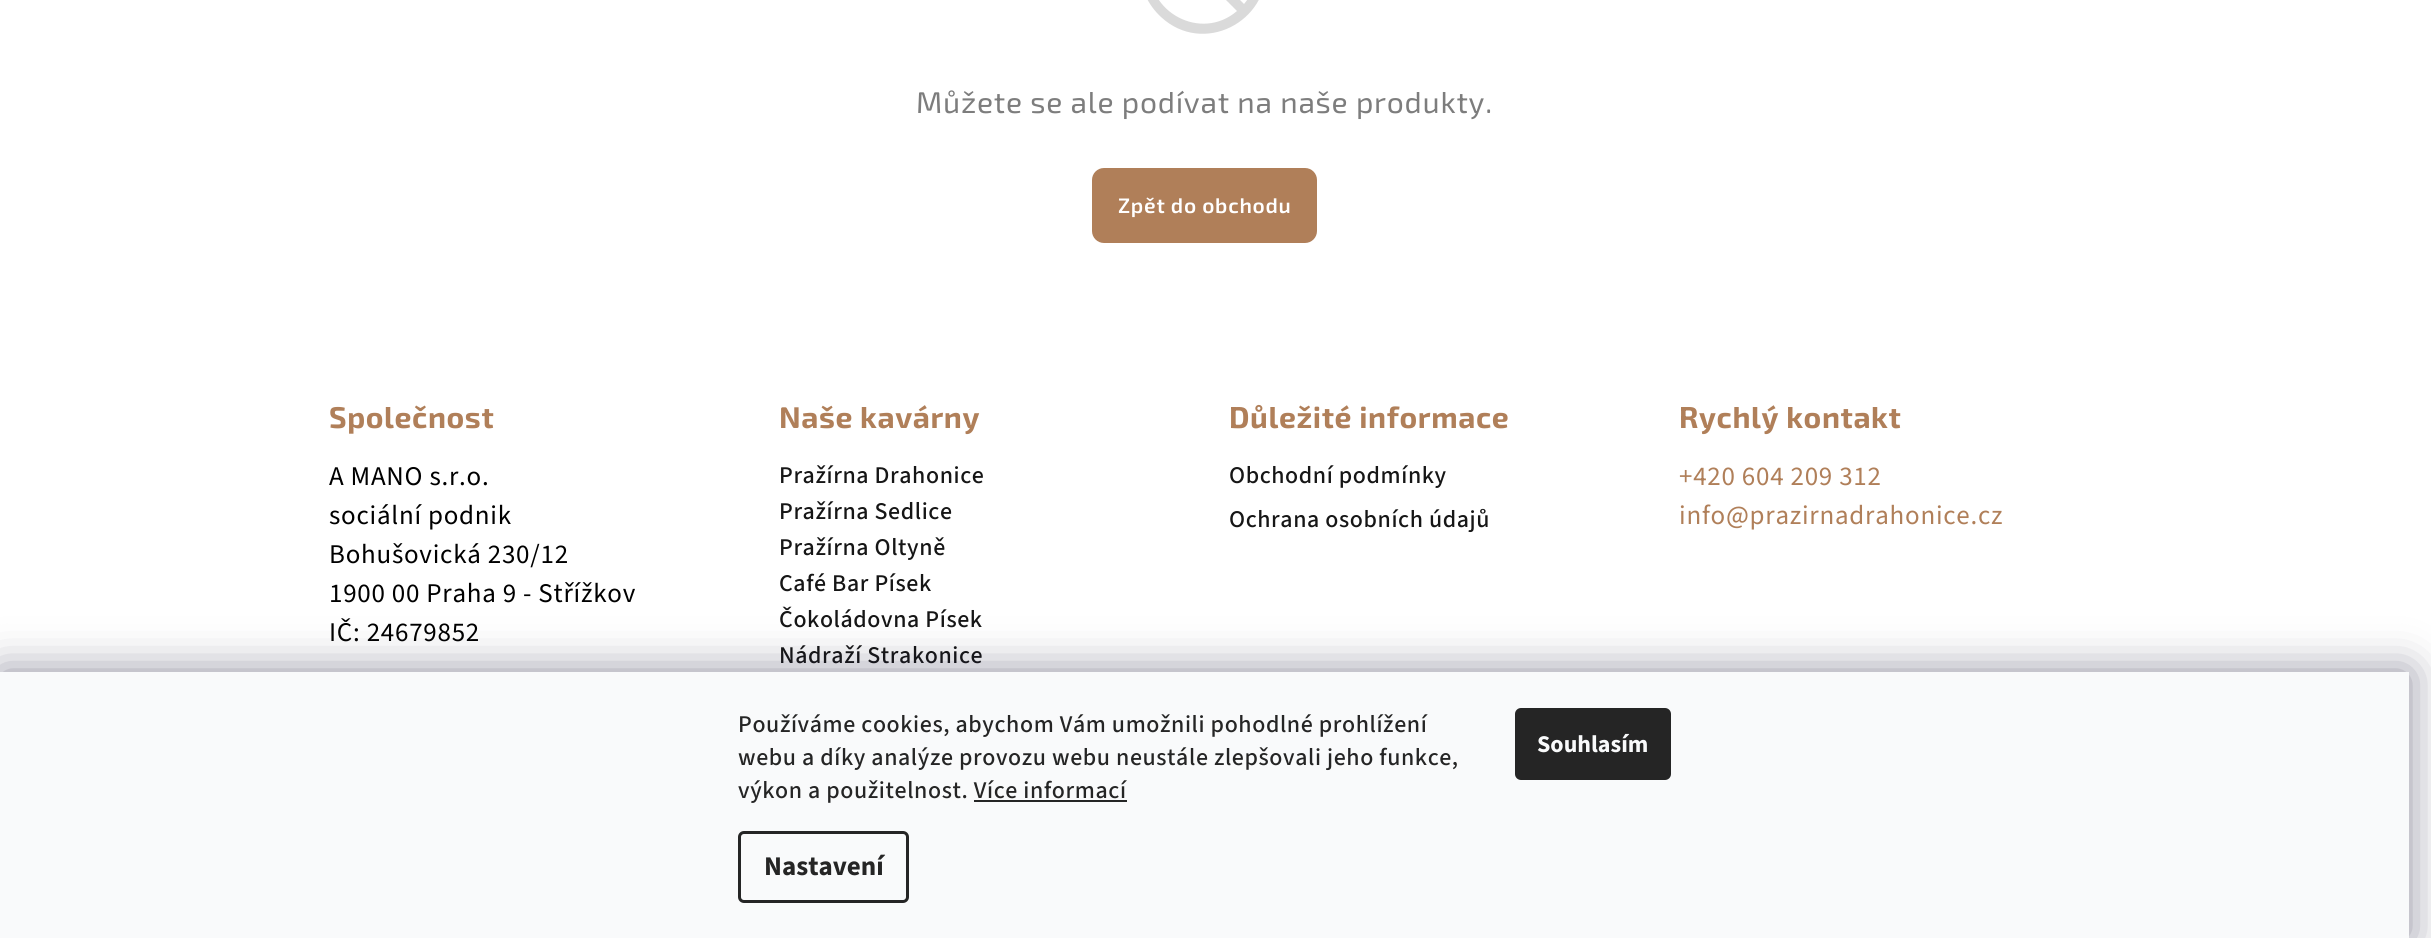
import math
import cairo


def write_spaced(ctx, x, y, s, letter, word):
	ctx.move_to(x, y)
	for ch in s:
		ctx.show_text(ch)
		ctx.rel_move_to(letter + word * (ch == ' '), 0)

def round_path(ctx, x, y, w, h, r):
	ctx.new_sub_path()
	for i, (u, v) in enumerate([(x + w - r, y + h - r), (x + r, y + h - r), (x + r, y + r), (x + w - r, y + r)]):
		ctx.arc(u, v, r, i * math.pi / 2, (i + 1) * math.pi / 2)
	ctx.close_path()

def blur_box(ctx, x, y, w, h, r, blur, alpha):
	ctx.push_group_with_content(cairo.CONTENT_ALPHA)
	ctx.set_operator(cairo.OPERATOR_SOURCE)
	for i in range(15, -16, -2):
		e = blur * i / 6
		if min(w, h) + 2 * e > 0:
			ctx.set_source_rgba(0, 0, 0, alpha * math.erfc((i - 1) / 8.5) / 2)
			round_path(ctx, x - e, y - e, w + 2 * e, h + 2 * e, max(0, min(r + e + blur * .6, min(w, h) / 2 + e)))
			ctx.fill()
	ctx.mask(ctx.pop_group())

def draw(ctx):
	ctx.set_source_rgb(1, 1, 1)
	ctx.paint()
	ctx.set_source_rgb(0.855, 0.855, 0.855)
	ctx.new_path()
	ctx.move_to(1203, -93)
	ctx.curve_to(1186, -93, 1171, -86, 1159, -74)
	ctx.line_to(1158, -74)
	ctx.curve_to(1133, -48, 1134, -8, 1161, 17)
	ctx.curve_to(1203, 56, 1269, 22, 1266, -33)
	ctx.curve_to(1265, -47, 1259, -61, 1250, -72)
	ctx.curve_to(1238, -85, 1221, -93, 1203, -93)
	ctx.close_path()
	ctx.move_to(1203, -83)
	ctx.curve_to(1248, -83, 1273, -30, 1244, 4)
	ctx.line_to(1169, -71)
	ctx.curve_to(1178, -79, 1191, -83, 1203, -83)
	ctx.close_path()
	ctx.move_to(1162, -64)
	ctx.line_to(1237, 11)
	ctx.curve_to(1201, 42, 1146, 12, 1150, -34)
	ctx.curve_to(1151, -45, 1155, -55, 1162, -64)
	ctx.close_path()
	ctx.fill()
	ctx.select_font_face('Exo 2')
	ctx.set_font_size(30)
	ctx.set_source_rgb(0.49, 0.49, 0.49)
	write_spaced(ctx, 916, 113, 'Můžete se ale podívat na naše produkty.', 0.75, 0)
	ctx.set_source_rgb(0.69, 0.498, 0.349)
	round_path(ctx, 1093, 169, 223, 73, 11)
	ctx.fill_preserve()
	ctx.stroke()
	ctx.select_font_face('Exo 2 SemiBold')
	ctx.set_font_size(21)
	ctx.set_source_rgb(1, 1, 1)
	write_spaced(ctx, 1118, 213, 'Zpět do obchodu', 0.75, 0)
	ctx.select_font_face('Exo 2', cairo.FONT_SLANT_NORMAL, cairo.FONT_WEIGHT_BOLD)
	ctx.set_font_size(30)
	ctx.set_source_rgb(0.69, 0.498, 0.349)
	write_spaced(ctx, 329, 428, 'Společnost', 0.6, 0)
	ctx.select_font_face('Source Sans 3')
	ctx.set_font_size(27)
	ctx.set_source_rgb(0, 0, 0)
	for x, y, s in [
		(329, 485, 'A MANO s.r.o.'),
		(329, 524, 'sociální podnik'),
		(329, 563, 'Bohušovická 230/12'),
		(329, 602, '1900 00 Praha 9 - Střížkov'),
		(329, 641, 'IČ: 24679852'),
	]:
		write_spaced(ctx, x, y, s, 0.75, 0)
	ctx.select_font_face('Exo 2', cairo.FONT_SLANT_NORMAL, cairo.FONT_WEIGHT_BOLD)
	ctx.set_font_size(30)
	ctx.set_source_rgb(0.69, 0.498, 0.349)
	write_spaced(ctx, 779, 428, 'Naše kavárny', 0.6, 0)
	ctx.select_font_face('Source Sans 3 Medium')
	ctx.set_font_size(24)
	ctx.set_source_rgb(0.086, 0.086, 0.086)
	for x, y, s in [
		(779, 483, 'Pražírna Drahonice'),
		(779, 519, 'Pražírna Sedlice'),
		(779, 555, 'Pražírna Oltyně'),
		(779, 591, 'Café Bar Písek'),
		(779, 627, 'Čokoládovna Písek'),
		(779, 663, 'Nádraží Strakonice'),
	]:
		write_spaced(ctx, x, y, s, 0.6, 0)
	ctx.select_font_face('Exo 2', cairo.FONT_SLANT_NORMAL, cairo.FONT_WEIGHT_BOLD)
	ctx.set_font_size(30)
	ctx.set_source_rgb(0.69, 0.498, 0.349)
	write_spaced(ctx, 1229, 428, 'Důležité informace', 0.6, 0)
	ctx.select_font_face('Source Sans 3 Medium')
	ctx.set_font_size(24)
	ctx.set_source_rgb(0.086, 0.086, 0.086)
	write_spaced(ctx, 1229, 483, 'Obchodní podmínky', 0.6, 0)
	write_spaced(ctx, 1229, 527, 'Ochrana osobních údajů', 0.6, 0)
	ctx.select_font_face('Exo 2', cairo.FONT_SLANT_NORMAL, cairo.FONT_WEIGHT_BOLD)
	ctx.set_font_size(30)
	ctx.set_source_rgb(0.69, 0.498, 0.349)
	write_spaced(ctx, 1679, 428, 'Rychlý kontakt', 0.6, 0)
	ctx.select_font_face('Source Sans 3')
	ctx.set_font_size(27)
	write_spaced(ctx, 1679, 485, '+420 604 209 312', 0.75, 0)
	write_spaced(ctx, 1679, 524, 'info@prazirnadrahonice.cz', 0.75, 0)
	ctx.set_source_rgb(0.106, 0.098, 0.224)
	blur_box(ctx, 0, 672, 2409, 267, 0, 22.5, 0.5)
	ctx.set_source_rgb(0.973, 0.98, 0.984)
	ctx.rectangle(0, 672, 2409, 266)
	ctx.fill()
	ctx.select_font_face('Source Sans 3 Medium')
	ctx.set_font_size(24)
	ctx.set_source_rgb(0.145, 0.145, 0.145)
	for x, y, s in [
		(738, 732, 'Používáme cookies, abychom Vám umožnili pohodlné prohlížení'),
		(738, 765, 'webu a díky analýze provozu webu neustále zlepšovali jeho funkce,'),
		(738, 798, 'výkon a použitelnost. Více informací'),
	]:
		write_spaced(ctx, x, y, s, 0.6, 0)
	ctx.rectangle(974, 800, 153, 2)
	ctx.fill()
	round_path(ctx, 739.5, 832.5, 168, 69, 4.5)
	ctx.set_line_width(3)
	ctx.stroke()
	ctx.select_font_face('Source Sans 3', cairo.FONT_SLANT_NORMAL, cairo.FONT_WEIGHT_BOLD)
	ctx.set_font_size(27)
	ctx.move_to(764, 875)
	ctx.show_text('Nastavení')
	round_path(ctx, 1515, 708, 156, 72, 6)
	ctx.fill()
	ctx.set_font_size(24)
	ctx.set_source_rgb(0.973, 0.98, 0.984)
	ctx.move_to(1537, 752)
	ctx.show_text('Souhlasím')


surface = cairo.ImageSurface(cairo.FORMAT_RGB24, 2431, 938)
ctx = cairo.Context(surface)
options = cairo.FontOptions()
options.set_hint_metrics(cairo.HINT_METRICS_OFF)
options.set_hint_style(cairo.HINT_STYLE_NONE)
ctx.set_font_options(options)
ctx.set_miter_limit(4)
draw(ctx)
surface.write_to_png('image.png')
